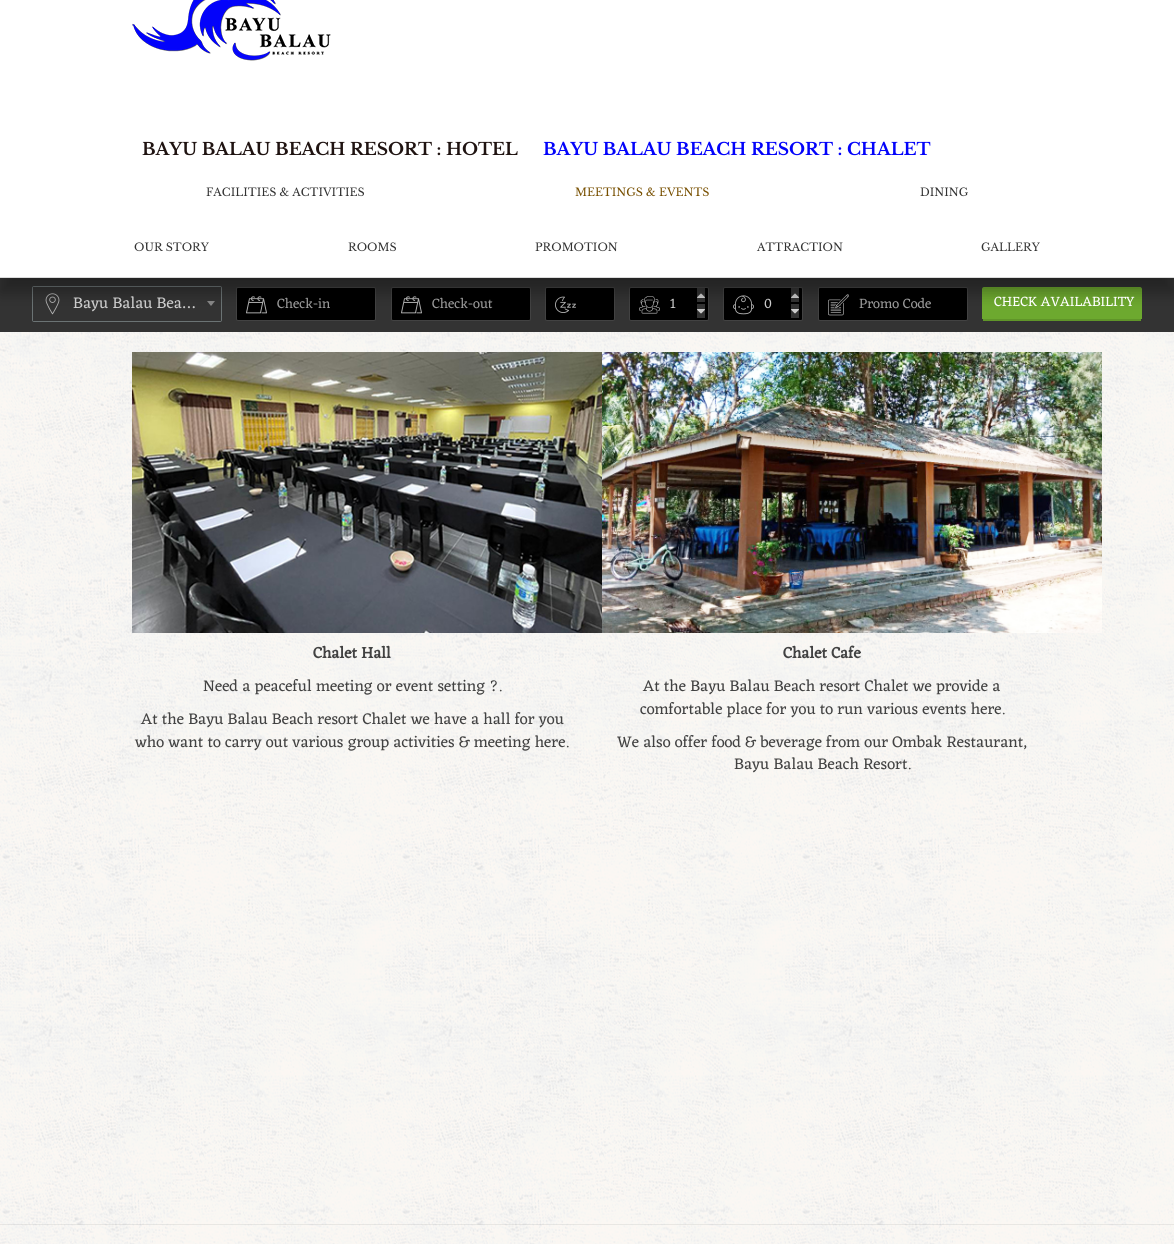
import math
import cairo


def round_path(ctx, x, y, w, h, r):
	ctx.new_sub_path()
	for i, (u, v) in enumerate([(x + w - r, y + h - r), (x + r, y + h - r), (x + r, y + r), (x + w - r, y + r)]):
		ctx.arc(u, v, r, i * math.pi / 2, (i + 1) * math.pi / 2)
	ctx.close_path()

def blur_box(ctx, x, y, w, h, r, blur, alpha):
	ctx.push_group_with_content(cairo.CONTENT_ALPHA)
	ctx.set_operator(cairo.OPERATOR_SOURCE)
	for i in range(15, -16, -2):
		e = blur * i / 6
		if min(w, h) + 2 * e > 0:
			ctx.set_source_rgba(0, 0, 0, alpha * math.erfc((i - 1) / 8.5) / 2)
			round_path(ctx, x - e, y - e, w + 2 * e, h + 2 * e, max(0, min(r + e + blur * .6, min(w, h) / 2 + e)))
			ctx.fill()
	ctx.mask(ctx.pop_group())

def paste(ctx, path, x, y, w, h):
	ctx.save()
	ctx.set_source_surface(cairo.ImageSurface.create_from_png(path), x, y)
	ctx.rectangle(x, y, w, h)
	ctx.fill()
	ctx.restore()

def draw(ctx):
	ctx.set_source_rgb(1, 1, 1)
	ctx.paint()
	paste(ctx, 'media/1.png', 0, 332, 1174, 912)
	ctx.set_source_rgb(0.2, 0.2, 0.2)
	ctx.rectangle(0, 278, 1174, 54)
	ctx.fill()
	round_path(ctx, 32.5, 286.5, 189, 35, 1.5)
	ctx.set_source_rgb(0.42, 0.451, 0.455)
	ctx.set_line_width(1)
	ctx.stroke()
	ctx.set_source_rgb(0.2, 0.2, 0.2)
	ctx.rectangle(33, 287, 188, 34)
	ctx.fill()
	paste(ctx, 'media/3.png', 45, 293, 15, 22)
	ctx.set_source_rgb(0.533, 0.533, 0.533)
	ctx.new_path()
	ctx.move_to(207, 301)
	ctx.line_to(215, 301)
	ctx.line_to(211, 306)
	ctx.close_path()
	ctx.fill()
	ctx.set_source_rgb(0, 0, 0)
	round_path(ctx, 236.5, 287.5, 139, 33, 1.5)
	ctx.fill_preserve()
	ctx.set_source_rgb(0.259, 0.259, 0.259)
	ctx.stroke()
	paste(ctx, 'media/4.png', 246, 296, 21, 18)
	ctx.set_source_rgb(0, 0, 0)
	round_path(ctx, 391.5, 287.5, 139, 33, 1.5)
	ctx.fill_preserve()
	ctx.set_source_rgb(0.259, 0.259, 0.259)
	ctx.stroke()
	paste(ctx, 'media/4.png', 401, 296, 21, 18)
	ctx.set_source_rgb(0, 0, 0)
	round_path(ctx, 545.5, 287.5, 69, 33, 1.5)
	ctx.fill_preserve()
	ctx.set_source_rgb(0.259, 0.259, 0.259)
	ctx.stroke()
	paste(ctx, 'media/5.png', 555, 296, 21, 17)
	ctx.set_source_rgb(0, 0, 0)
	round_path(ctx, 629.5, 287.5, 79, 33, 1.5)
	ctx.fill_preserve()
	ctx.set_source_rgb(0.259, 0.259, 0.259)
	ctx.stroke()
	paste(ctx, 'media/6.png', 639, 296, 21, 18)
	ctx.set_source_rgb(0.2, 0.2, 0.2)
	ctx.rectangle(697, 288, 8, 14)
	ctx.fill()
	paste(ctx, 'media/7.png', 697, 293, 8, 5)
	ctx.rectangle(697, 304, 8, 14)
	ctx.fill()
	paste(ctx, 'media/8.png', 697, 309, 8, 5)
	ctx.set_source_rgb(0, 0, 0)
	round_path(ctx, 723.5, 287.5, 79, 33, 1.5)
	ctx.fill_preserve()
	ctx.set_source_rgb(0.259, 0.259, 0.259)
	ctx.stroke()
	paste(ctx, 'media/9.png', 733, 295, 21, 20)
	ctx.set_source_rgb(0.2, 0.2, 0.2)
	ctx.rectangle(791, 288, 8, 14)
	ctx.fill()
	paste(ctx, 'media/7.png', 791, 293, 8, 5)
	ctx.rectangle(791, 304, 8, 14)
	ctx.fill()
	paste(ctx, 'media/8.png', 791, 309, 8, 5)
	ctx.set_source_rgb(0, 0, 0)
	round_path(ctx, 818.5, 287.5, 149, 33, 1.5)
	ctx.fill_preserve()
	ctx.set_source_rgb(0.259, 0.259, 0.259)
	ctx.stroke()
	paste(ctx, 'media/10.png', 828, 294, 21, 22)
	ctx.set_source_rgb(0.427, 0.663, 0.184)
	ctx.new_path()
	ctx.move_to(984, 287)
	ctx.line_to(1140, 287)
	ctx.curve_to(1141, 287, 1142, 288, 1142, 289)
	ctx.line_to(1142, 319)
	ctx.line_to(982, 319)
	ctx.line_to(982, 289)
	ctx.curve_to(982, 288, 983, 287, 984, 287)
	ctx.close_path()
	ctx.fill()
	ctx.set_source_rgb(0, 0, 0)
	blur_box(ctx, 0, -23, 1174, 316, 0, 7.5, 0.3)
	ctx.set_source_rgb(1, 1, 1)
	ctx.rectangle(0, 0, 1174, 277)
	ctx.fill()
	ctx.set_source_rgb(0.859, 0.859, 0.859)
	ctx.rectangle(0, 277, 1174, 1)
	ctx.fill()
	paste(ctx, 'media/2.png', 132, 0, 199, 61)
	ctx.select_font_face('Libre Baskerville', cairo.FONT_SLANT_NORMAL, cairo.FONT_WEIGHT_BOLD)
	ctx.set_font_size(17)
	ctx.set_source_rgb(0.122, 0.075, 0.067)
	ctx.move_to(142, 155)
	ctx.show_text('BAYU BALAU BEACH RESORT : HOTEL')
	ctx.set_source_rgb(0.012, 0.012, 0.98)
	ctx.move_to(543, 155)
	ctx.show_text('BAYU BALAU BEACH RESORT : CHALET')
	ctx.select_font_face('Libre Baskerville')
	ctx.set_font_size(11)
	ctx.set_source_rgb(0.2, 0.2, 0.2)
	ctx.move_to(206, 196)
	ctx.show_text('FACILITIES & ACTIVITIES')
	ctx.set_source_rgb(0.467, 0.31, 0)
	ctx.move_to(575, 196)
	ctx.show_text('MEETINGS & EVENTS')
	ctx.set_source_rgb(0.2, 0.2, 0.2)
	for x, y, s in [
		(920, 196, 'DINING'),
		(134, 251, 'OUR STORY'),
		(348, 251, 'ROOMS'),
		(535, 251, 'PROMOTION'),
		(757, 251, 'ATTRACTION'),
		(981, 251, 'GALLERY'),
	]:
		ctx.move_to(x, y)
		ctx.show_text(s)
	ctx.select_font_face('Eczar')
	ctx.set_font_size(16)
	ctx.set_source_rgb(0.8, 0.8, 0.8)
	ctx.move_to(73, 308)
	ctx.show_text('Bayu Balau Bea…')
	ctx.set_font_size(14)
	ctx.set_source_rgb(0.6, 0.6, 0.6)
	ctx.move_to(277, 308)
	ctx.show_text('Check-in')
	ctx.move_to(432, 308)
	ctx.show_text('Check-out')
	ctx.set_source_rgb(0.8, 0.8, 0.8)
	ctx.move_to(670, 308)
	ctx.show_text('1')
	ctx.move_to(764, 308)
	ctx.show_text('0')
	ctx.set_source_rgb(0.6, 0.6, 0.6)
	ctx.move_to(859, 308)
	ctx.show_text('Promo Code')
	ctx.set_source_rgb(0.376, 0.584, 0.161)
	ctx.rectangle(983, 319, 158, 2)
	ctx.fill()
	ctx.set_source_rgb(1, 1, 1)
	ctx.move_to(994, 306)
	ctx.show_text('CHECK AVAILABILITY')
	paste(ctx, 'media/11.png', 132, 352, 470, 281)
	ctx.select_font_face('Eczar', cairo.FONT_SLANT_NORMAL, cairo.FONT_WEIGHT_BOLD)
	ctx.set_font_size(16)
	ctx.set_source_rgb(0.259, 0.259, 0.259)
	ctx.move_to(313, 658)
	ctx.show_text('Chalet Hall')
	ctx.select_font_face('Eczar')
	for x, y, s in [
		(203, 691, 'Need a peaceful meeting or event setting ?.'),
		(141, 724, 'At the Bayu Balau Beach resort Chalet we have a hall for you'),
		(135, 747, 'who want to carry out various group activities & meeting here.'),
	]:
		ctx.move_to(x, y)
		ctx.show_text(s)
	paste(ctx, 'media/12.png', 602, 352, 500, 281)
	ctx.select_font_face('Eczar', cairo.FONT_SLANT_NORMAL, cairo.FONT_WEIGHT_BOLD)
	ctx.move_to(783, 658)
	ctx.show_text('Chalet Cafe')
	ctx.select_font_face('Eczar')
	for x, y, s in [
		(643, 691, 'At the Bayu Balau Beach resort Chalet we provide a'),
		(640, 714, 'comfortable place for you to run various events here.'),
		(617, 747, 'We also offer food & beverage from our Ombak Restaurant,'),
		(734, 769, 'Bayu Balau Beach Resort.'),
	]:
		ctx.move_to(x, y)
		ctx.show_text(s)
	ctx.set_source_rgba(0, 0, 0, 0.07)
	ctx.rectangle(0, 1224, 1174, 1)
	ctx.fill()


surface = cairo.ImageSurface(cairo.FORMAT_RGB24, 1174, 1244)
ctx = cairo.Context(surface)
options = cairo.FontOptions()
options.set_hint_metrics(cairo.HINT_METRICS_OFF)
options.set_hint_style(cairo.HINT_STYLE_NONE)
ctx.set_font_options(options)
ctx.set_miter_limit(4)
draw(ctx)
surface.write_to_png('image.png')
